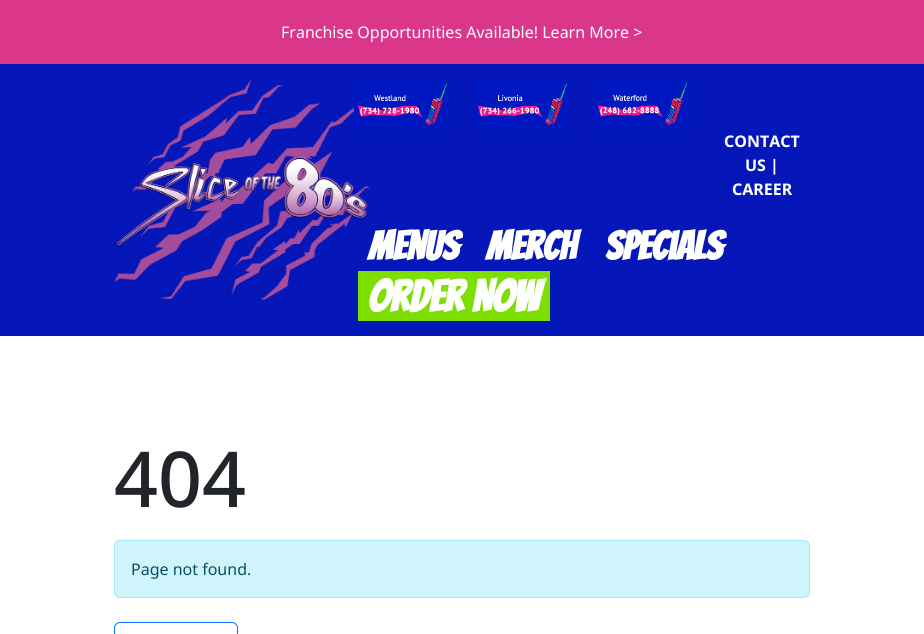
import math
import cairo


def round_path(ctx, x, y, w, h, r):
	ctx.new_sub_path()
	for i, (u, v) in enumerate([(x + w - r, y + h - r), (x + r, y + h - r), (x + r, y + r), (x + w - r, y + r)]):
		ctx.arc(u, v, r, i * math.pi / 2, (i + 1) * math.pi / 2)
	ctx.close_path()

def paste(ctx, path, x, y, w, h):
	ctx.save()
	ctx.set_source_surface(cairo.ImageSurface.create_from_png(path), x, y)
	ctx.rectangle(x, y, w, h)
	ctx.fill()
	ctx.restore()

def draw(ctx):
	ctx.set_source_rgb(1, 1, 1)
	ctx.paint()
	ctx.set_source_rgb(0.855, 0.216, 0.545)
	ctx.rectangle(0, 0, 924, 64)
	ctx.fill()
	ctx.select_font_face('Noto Sans')
	ctx.set_font_size(16)
	ctx.set_source_rgb(1, 1, 1)
	ctx.move_to(281, 38)
	ctx.show_text('Franchise Opportunities Available! Learn More >')
	ctx.set_source_rgb(0.02, 0.09, 0.722)
	ctx.rectangle(0, 64, 924, 272)
	ctx.fill()
	paste(ctx, 'media/1.png', 114, 79, 256, 221)
	paste(ctx, 'media/2.png', 354, 79, 96, 51)
	paste(ctx, 'media/3.png', 474, 79, 96, 51)
	paste(ctx, 'media/4.png', 594, 79, 96, 51)
	ctx.select_font_face('Noto Sans', cairo.FONT_SLANT_NORMAL, cairo.FONT_WEIGHT_BOLD)
	ctx.set_source_rgb(1, 1, 1)
	for x, y, s in [
		(724, 147, 'CONTACT'),
		(745, 171, 'US |'),
		(732, 195, 'CAREER'),
	]:
		ctx.move_to(x, y)
		ctx.show_text(s)
	ctx.select_font_face('Bangers', cairo.FONT_SLANT_NORMAL, cairo.FONT_WEIGHT_BOLD)
	ctx.set_font_size(40)
	ctx.move_to(368, 260)
	ctx.show_text('Menus')
	ctx.new_path()
	ctx.move_to(457, 244)
	ctx.line_to(463, 244)
	ctx.line_to(460, 248)
	ctx.close_path()
	ctx.fill()
	ctx.move_to(486, 260)
	ctx.show_text('Merch')
	ctx.move_to(605, 260)
	ctx.show_text('Specials')
	ctx.new_path()
	ctx.move_to(721, 244)
	ctx.line_to(727, 244)
	ctx.line_to(724, 248)
	ctx.close_path()
	ctx.fill()
	ctx.set_source_rgb(0.49, 0.875, 0)
	ctx.rectangle(358, 271, 192, 50)
	ctx.fill()
	ctx.set_font_size(44)
	ctx.set_source_rgb(1, 1, 1)
	ctx.move_to(368, 312)
	ctx.show_text('Order Now')
	ctx.select_font_face('Noto Sans Medium')
	ctx.set_font_size(77)
	ctx.set_source_rgb(0.129, 0.145, 0.161)
	ctx.move_to(114, 507)
	ctx.show_text('404')
	ctx.set_source_rgb(0.812, 0.957, 0.988)
	round_path(ctx, 114.5, 540.5, 695, 57, 5.5)
	ctx.fill_preserve()
	ctx.set_source_rgb(0.62, 0.918, 0.976)
	ctx.set_line_width(1)
	ctx.stroke()
	ctx.select_font_face('Noto Sans')
	ctx.set_font_size(16)
	ctx.set_source_rgb(0.02, 0.318, 0.376)
	ctx.move_to(131, 575)
	ctx.show_text('Page not found.')
	round_path(ctx, 114.5, 622.5, 123, 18, 5.5)
	ctx.set_source_rgb(0.051, 0.431, 0.992)
	ctx.stroke()


surface = cairo.ImageSurface(cairo.FORMAT_RGB24, 924, 634)
ctx = cairo.Context(surface)
options = cairo.FontOptions()
options.set_hint_metrics(cairo.HINT_METRICS_OFF)
options.set_hint_style(cairo.HINT_STYLE_NONE)
ctx.set_font_options(options)
ctx.set_miter_limit(4)
draw(ctx)
surface.write_to_png('image.png')
